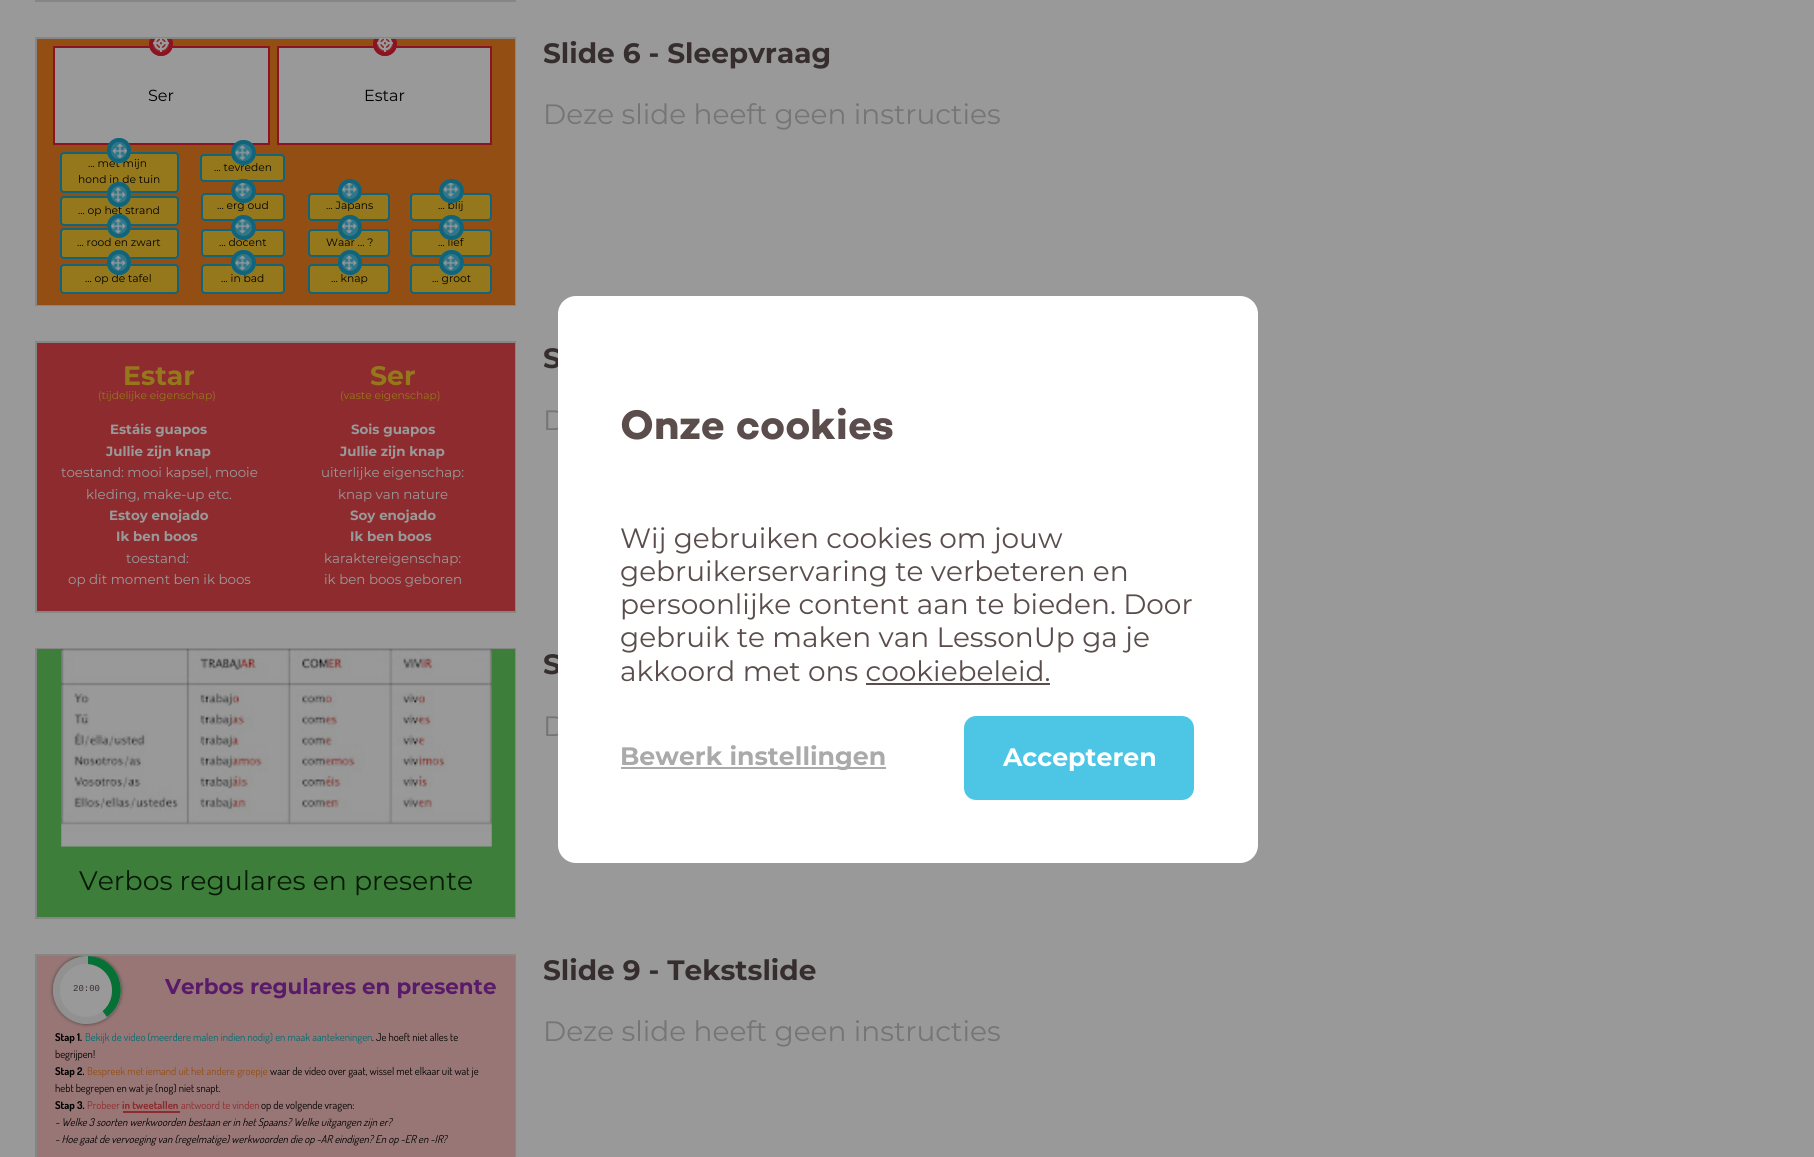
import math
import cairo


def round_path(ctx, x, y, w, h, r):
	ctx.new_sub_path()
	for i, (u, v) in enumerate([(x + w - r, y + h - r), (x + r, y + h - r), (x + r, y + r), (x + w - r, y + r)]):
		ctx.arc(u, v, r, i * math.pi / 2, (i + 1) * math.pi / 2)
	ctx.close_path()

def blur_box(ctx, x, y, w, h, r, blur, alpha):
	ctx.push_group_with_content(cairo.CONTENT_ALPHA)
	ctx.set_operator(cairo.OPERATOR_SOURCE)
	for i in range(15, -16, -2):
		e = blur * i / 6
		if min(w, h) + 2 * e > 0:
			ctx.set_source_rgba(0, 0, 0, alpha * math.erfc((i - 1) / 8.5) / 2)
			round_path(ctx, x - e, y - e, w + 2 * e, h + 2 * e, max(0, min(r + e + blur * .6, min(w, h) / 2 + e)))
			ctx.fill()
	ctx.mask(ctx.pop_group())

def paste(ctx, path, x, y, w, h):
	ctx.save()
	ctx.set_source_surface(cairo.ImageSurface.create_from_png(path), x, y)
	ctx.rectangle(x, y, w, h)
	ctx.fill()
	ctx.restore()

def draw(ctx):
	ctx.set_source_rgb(0.6, 0.6, 0.6)
	ctx.paint()
	ctx.rectangle(36, -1, 479, 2)
	ctx.set_source_rgb(0.525, 0.525, 0.525)
	ctx.stroke()
	ctx.rectangle(36, 38, 479, 267)
	ctx.stroke()
	ctx.set_source_rgb(0.573, 0.306, 0.078)
	ctx.rectangle(37, 39, 478, 266)
	ctx.fill()
	ctx.set_source_rgb(0.6, 0.6, 0.6)
	ctx.rectangle(55, 48, 213, 95)
	ctx.fill()
	ctx.rectangle(54, 47, 215, 97)
	ctx.set_source_rgb(0.545, 0.078, 0.133)
	ctx.stroke()
	ctx.save()
	ctx.rectangle(37, 39, 478, 266)
	ctx.clip()
	ctx.set_source_rgb(0.557, 0.169, 0.18)
	ctx.arc(161, 44, 12, 0, 2 * math.pi)
	ctx.fill()
	ctx.restore()
	paste(ctx, 'media/1.png', 153, 38, 16, 14)
	ctx.save()
	ctx.rectangle(37, 39, 478, 266)
	ctx.clip()
	ctx.arc(161, 44, 10, 0, 2 * math.pi)
	ctx.set_line_width(4)
	ctx.stroke()
	ctx.restore()
	ctx.select_font_face('Montserrat')
	ctx.set_font_size(16)
	ctx.set_source_rgb(0, 0, 0)
	ctx.move_to(148, 101)
	ctx.show_text('Ser')
	ctx.set_source_rgb(0.6, 0.6, 0.6)
	ctx.rectangle(279, 48, 211, 95)
	ctx.fill()
	ctx.rectangle(278, 47, 213, 97)
	ctx.set_source_rgb(0.545, 0.078, 0.133)
	ctx.stroke()
	ctx.save()
	ctx.rectangle(37, 39, 478, 266)
	ctx.clip()
	ctx.set_source_rgb(0.557, 0.169, 0.18)
	ctx.arc(385, 44, 12, 0, 2 * math.pi)
	ctx.fill()
	ctx.restore()
	paste(ctx, 'media/1.png', 377, 38, 16, 14)
	ctx.save()
	ctx.rectangle(37, 39, 478, 266)
	ctx.clip()
	ctx.arc(385, 44, 10, 0, 2 * math.pi)
	ctx.set_line_width(4)
	ctx.stroke()
	ctx.restore()
	ctx.set_source_rgb(0, 0, 0)
	ctx.move_to(364, 101)
	ctx.show_text('Estar')
	ctx.set_source_rgb(0.584, 0.471, 0.106)
	ctx.rectangle(62, 154, 115, 37)
	ctx.fill()
	round_path(ctx, 61, 153, 117, 39, 3)
	ctx.set_source_rgb(0.067, 0.392, 0.475)
	ctx.stroke()
	ctx.set_font_size(10.7)
	ctx.set_source_rgb(0, 0, 0)
	ctx.move_to(88, 167)
	ctx.show_text('... met mijn')
	ctx.set_source_rgb(0.18, 0.467, 0.541)
	round_path(ctx, 107, 138, 24, 25, 12)
	ctx.fill()
	paste(ctx, 'media/2.png', 112, 143, 15, 16)
	round_path(ctx, 109, 140, 20, 21, 10)
	ctx.set_source_rgb(0.067, 0.392, 0.475)
	ctx.set_line_width(4)
	ctx.stroke()
	ctx.set_source_rgb(0, 0, 0)
	ctx.move_to(78, 183)
	ctx.show_text('hond in de tuin')
	ctx.set_source_rgb(0.584, 0.471, 0.106)
	ctx.rectangle(202, 156, 81, 24)
	ctx.fill()
	round_path(ctx, 201, 155, 83, 26, 3)
	ctx.set_source_rgb(0.067, 0.392, 0.475)
	ctx.set_line_width(2)
	ctx.stroke()
	ctx.set_source_rgb(0, 0, 0)
	ctx.move_to(214, 171)
	ctx.show_text('... tevreden')
	ctx.set_source_rgb(0.18, 0.467, 0.541)
	ctx.new_path()
	ctx.arc(243.5, 152.5, 12.5, 0, 2 * math.pi)
	ctx.fill()
	paste(ctx, 'media/3.png', 235, 144, 16, 17)
	ctx.arc(243.5, 152.5, 10.5, 0, 2 * math.pi)
	ctx.set_source_rgb(0.067, 0.392, 0.475)
	ctx.set_line_width(4)
	ctx.stroke()
	ctx.set_source_rgb(0.584, 0.471, 0.106)
	ctx.rectangle(62, 198, 115, 26)
	ctx.fill()
	round_path(ctx, 61, 197, 117, 28, 3)
	ctx.set_source_rgb(0.067, 0.392, 0.475)
	ctx.set_line_width(2)
	ctx.stroke()
	ctx.set_source_rgb(0, 0, 0)
	ctx.move_to(78, 214)
	ctx.show_text('... op het strand')
	ctx.set_source_rgb(0.18, 0.467, 0.541)
	round_path(ctx, 107, 182, 24, 25, 12)
	ctx.fill()
	paste(ctx, 'media/4.png', 111, 186, 15, 17)
	round_path(ctx, 109, 184, 20, 21, 10)
	ctx.set_source_rgb(0.067, 0.392, 0.475)
	ctx.set_line_width(4)
	ctx.stroke()
	ctx.set_source_rgb(0.584, 0.471, 0.106)
	ctx.rectangle(203, 194, 81, 25)
	ctx.fill()
	round_path(ctx, 202, 194, 82, 26, 3)
	ctx.set_source_rgb(0.067, 0.392, 0.475)
	ctx.set_line_width(2)
	ctx.stroke()
	ctx.set_source_rgb(0, 0, 0)
	ctx.move_to(217, 209)
	ctx.show_text('... erg oud')
	ctx.set_source_rgb(0.18, 0.467, 0.541)
	round_path(ctx, 231, 179, 25, 24, 12)
	ctx.fill()
	paste(ctx, 'media/5.png', 235, 183, 16, 15)
	round_path(ctx, 233, 181, 21, 20, 10)
	ctx.set_source_rgb(0.067, 0.392, 0.475)
	ctx.set_line_width(4)
	ctx.stroke()
	ctx.set_source_rgb(0.584, 0.471, 0.106)
	ctx.rectangle(310, 194, 79, 25)
	ctx.fill()
	round_path(ctx, 309, 194, 80, 26, 3)
	ctx.set_source_rgb(0.067, 0.392, 0.475)
	ctx.set_line_width(2)
	ctx.stroke()
	ctx.set_source_rgb(0, 0, 0)
	ctx.move_to(326, 209)
	ctx.show_text('... Japans')
	ctx.set_source_rgb(0.18, 0.467, 0.541)
	ctx.new_path()
	ctx.arc(350, 191, 12, 0, 2 * math.pi)
	ctx.fill()
	paste(ctx, 'media/6.png', 342, 183, 15, 15)
	ctx.arc(350, 191, 10, 0, 2 * math.pi)
	ctx.set_source_rgb(0.067, 0.392, 0.475)
	ctx.set_line_width(4)
	ctx.stroke()
	ctx.set_source_rgb(0.584, 0.471, 0.106)
	ctx.rectangle(411, 194, 79, 25)
	ctx.fill()
	round_path(ctx, 411, 194, 80, 26, 3)
	ctx.set_source_rgb(0.067, 0.392, 0.475)
	ctx.set_line_width(2)
	ctx.stroke()
	ctx.set_source_rgb(0, 0, 0)
	ctx.move_to(438, 209)
	ctx.show_text('... blij')
	ctx.set_source_rgb(0.18, 0.467, 0.541)
	round_path(ctx, 439, 179, 25, 24, 12)
	ctx.fill()
	paste(ctx, 'media/7.png', 443, 183, 16, 15)
	round_path(ctx, 441, 181, 21, 20, 10)
	ctx.set_source_rgb(0.067, 0.392, 0.475)
	ctx.set_line_width(4)
	ctx.stroke()
	ctx.set_source_rgb(0.584, 0.471, 0.106)
	ctx.rectangle(61, 229, 116, 28)
	ctx.fill()
	round_path(ctx, 61, 229, 117, 29, 3)
	ctx.set_source_rgb(0.067, 0.392, 0.475)
	ctx.set_line_width(2)
	ctx.stroke()
	ctx.set_source_rgb(0.18, 0.467, 0.541)
	ctx.arc(119, 226, 12, 0, 2 * math.pi)
	ctx.fill()
	paste(ctx, 'media/8.png', 111, 218, 15, 16)
	ctx.arc(119, 226, 10, 0, 2 * math.pi)
	ctx.set_source_rgb(0.067, 0.392, 0.475)
	ctx.set_line_width(4)
	ctx.stroke()
	ctx.set_source_rgb(0, 0, 0)
	ctx.move_to(77, 246)
	ctx.show_text('... rood en zwart')
	ctx.set_source_rgb(0.584, 0.471, 0.106)
	ctx.rectangle(203, 231, 81, 25)
	ctx.fill()
	round_path(ctx, 202, 230, 82, 26, 3)
	ctx.set_source_rgb(0.067, 0.392, 0.475)
	ctx.set_line_width(2)
	ctx.stroke()
	ctx.set_source_rgb(0, 0, 0)
	ctx.move_to(219, 246)
	ctx.show_text('... docent')
	ctx.set_source_rgb(0.18, 0.467, 0.541)
	ctx.new_path()
	ctx.arc(243.5, 227.5, 12.5, 0, 2 * math.pi)
	ctx.fill()
	paste(ctx, 'media/9.png', 235, 219, 16, 15)
	ctx.arc(243.5, 227.5, 10.5, 0, 2 * math.pi)
	ctx.set_source_rgb(0.067, 0.392, 0.475)
	ctx.set_line_width(4)
	ctx.stroke()
	ctx.set_source_rgb(0.584, 0.471, 0.106)
	ctx.rectangle(310, 231, 79, 25)
	ctx.fill()
	round_path(ctx, 309, 230, 80, 26, 3)
	ctx.set_source_rgb(0.067, 0.392, 0.475)
	ctx.set_line_width(2)
	ctx.stroke()
	ctx.set_source_rgb(0, 0, 0)
	ctx.move_to(326, 246)
	ctx.show_text('Waar ... ?')
	ctx.set_source_rgb(0.18, 0.467, 0.541)
	round_path(ctx, 338, 215, 24, 25, 12)
	ctx.fill()
	paste(ctx, 'media/10.png', 342, 219, 15, 15)
	round_path(ctx, 340, 217, 20, 21, 10)
	ctx.set_source_rgb(0.067, 0.392, 0.475)
	ctx.set_line_width(4)
	ctx.stroke()
	ctx.set_source_rgb(0.584, 0.471, 0.106)
	ctx.rectangle(411, 231, 79, 25)
	ctx.fill()
	round_path(ctx, 411, 230, 80, 26, 3)
	ctx.set_source_rgb(0.067, 0.392, 0.475)
	ctx.set_line_width(2)
	ctx.stroke()
	ctx.set_source_rgb(0, 0, 0)
	ctx.move_to(438, 246)
	ctx.show_text('... lief')
	ctx.set_source_rgb(0.18, 0.467, 0.541)
	ctx.new_path()
	ctx.arc(451.5, 227.5, 12.5, 0, 2 * math.pi)
	ctx.fill()
	paste(ctx, 'media/11.png', 443, 219, 16, 15)
	ctx.arc(451.5, 227.5, 10.5, 0, 2 * math.pi)
	ctx.set_source_rgb(0.067, 0.392, 0.475)
	ctx.set_line_width(4)
	ctx.stroke()
	ctx.set_source_rgb(0.584, 0.471, 0.106)
	ctx.rectangle(62, 266, 115, 26)
	ctx.fill()
	round_path(ctx, 61, 265, 117, 28, 3)
	ctx.set_source_rgb(0.067, 0.392, 0.475)
	ctx.set_line_width(2)
	ctx.stroke()
	ctx.set_source_rgb(0, 0, 0)
	ctx.move_to(85, 282)
	ctx.show_text('... op de tafel')
	ctx.set_source_rgb(0.18, 0.467, 0.541)
	round_path(ctx, 107, 250, 24, 25, 12)
	ctx.fill()
	paste(ctx, 'media/12.png', 111, 255, 15, 16)
	round_path(ctx, 109, 252, 20, 21, 10)
	ctx.set_source_rgb(0.067, 0.392, 0.475)
	ctx.set_line_width(4)
	ctx.stroke()
	ctx.set_source_rgb(0.584, 0.471, 0.106)
	ctx.rectangle(203, 266, 80, 26)
	ctx.fill()
	round_path(ctx, 202, 265, 82, 28, 3)
	ctx.set_source_rgb(0.067, 0.392, 0.475)
	ctx.set_line_width(2)
	ctx.stroke()
	ctx.set_source_rgb(0, 0, 0)
	ctx.move_to(221, 282)
	ctx.show_text('... in bad')
	ctx.set_source_rgb(0.18, 0.467, 0.541)
	ctx.new_path()
	ctx.arc(243.5, 262.5, 12.5, 0, 2 * math.pi)
	ctx.fill()
	paste(ctx, 'media/13.png', 235, 255, 16, 16)
	ctx.arc(243.5, 262.5, 10.5, 0, 2 * math.pi)
	ctx.set_source_rgb(0.067, 0.392, 0.475)
	ctx.set_line_width(4)
	ctx.stroke()
	ctx.set_source_rgb(0.584, 0.471, 0.106)
	ctx.rectangle(310, 266, 78, 26)
	ctx.fill()
	round_path(ctx, 309, 265, 80, 28, 3)
	ctx.set_source_rgb(0.067, 0.392, 0.475)
	ctx.set_line_width(2)
	ctx.stroke()
	ctx.set_source_rgb(0, 0, 0)
	ctx.move_to(331, 282)
	ctx.show_text('... knap')
	ctx.set_source_rgb(0.18, 0.467, 0.541)
	round_path(ctx, 338, 250, 24, 25, 12)
	ctx.fill()
	paste(ctx, 'media/12.png', 342, 255, 15, 16)
	round_path(ctx, 340, 252, 20, 21, 10)
	ctx.set_source_rgb(0.067, 0.392, 0.475)
	ctx.set_line_width(4)
	ctx.stroke()
	ctx.set_source_rgb(0.584, 0.471, 0.106)
	ctx.rectangle(412, 266, 78, 26)
	ctx.fill()
	round_path(ctx, 411, 265, 80, 28, 3)
	ctx.set_source_rgb(0.067, 0.392, 0.475)
	ctx.set_line_width(2)
	ctx.stroke()
	ctx.set_source_rgb(0.18, 0.467, 0.541)
	ctx.arc(451.5, 262.5, 12.5, 0, 2 * math.pi)
	ctx.fill()
	paste(ctx, 'media/14.png', 443, 255, 16, 16)
	ctx.arc(451.5, 262.5, 10.5, 0, 2 * math.pi)
	ctx.set_source_rgb(0.067, 0.392, 0.475)
	ctx.set_line_width(4)
	ctx.stroke()
	ctx.set_source_rgb(0, 0, 0)
	ctx.move_to(432, 282)
	ctx.show_text('... groot')
	ctx.select_font_face('Montserrat', cairo.FONT_SLANT_NORMAL, cairo.FONT_WEIGHT_BOLD)
	ctx.set_font_size(28)
	ctx.set_source_rgb(0.212, 0.18, 0.18)
	ctx.move_to(543, 63)
	ctx.show_text('Slide 6 - Sleepvraag')
	ctx.select_font_face('Montserrat')
	ctx.set_source_rgb(0.459, 0.459, 0.459)
	ctx.move_to(543, 124)
	ctx.show_text('Deze slide heeft geen instructies')
	ctx.rectangle(36, 342, 479, 270)
	ctx.set_source_rgb(0.525, 0.525, 0.525)
	ctx.set_line_width(2)
	ctx.stroke()
	ctx.set_source_rgb(0.557, 0.169, 0.18)
	ctx.rectangle(37, 343, 478, 268)
	ctx.fill()
	ctx.select_font_face('Montserrat', cairo.FONT_SLANT_NORMAL, cairo.FONT_WEIGHT_BOLD)
	ctx.set_font_size(26.75)
	ctx.set_source_rgb(0.584, 0.471, 0.106)
	ctx.move_to(123, 385)
	ctx.show_text('Estar')
	ctx.move_to(370, 385)
	ctx.show_text('Ser')
	ctx.select_font_face('Montserrat')
	ctx.set_font_size(10.7)
	ctx.move_to(98, 399)
	ctx.show_text('(tijdelijke eigenschap)')
	ctx.move_to(340, 399)
	ctx.show_text('(vaste eigenschap)')
	ctx.select_font_face('Montserrat', cairo.FONT_SLANT_NORMAL, cairo.FONT_WEIGHT_BOLD)
	ctx.set_font_size(13.4)
	ctx.set_source_rgb(0.6, 0.6, 0.6)
	ctx.move_to(110, 434)
	ctx.show_text('Estáis guapos')
	ctx.move_to(106, 456)
	ctx.show_text('Jullie zijn knap')
	ctx.select_font_face('Montserrat')
	ctx.move_to(61, 477)
	ctx.show_text('toestand: mooi kapsel, mooie')
	ctx.move_to(86, 499)
	ctx.show_text('kleding, make-up etc.')
	ctx.select_font_face('Montserrat', cairo.FONT_SLANT_NORMAL, cairo.FONT_WEIGHT_BOLD)
	ctx.move_to(109, 520)
	ctx.show_text('Estoy enojado')
	ctx.move_to(116, 541)
	ctx.show_text('Ik ben boos')
	ctx.select_font_face('Montserrat')
	ctx.move_to(126, 563)
	ctx.show_text('toestand:')
	ctx.move_to(68, 584)
	ctx.show_text('op dit moment ben ik boos')
	ctx.select_font_face('Montserrat', cairo.FONT_SLANT_NORMAL, cairo.FONT_WEIGHT_BOLD)
	ctx.move_to(351, 434)
	ctx.show_text('Sois guapos')
	ctx.move_to(340, 456)
	ctx.show_text('Jullie zijn knap')
	ctx.select_font_face('Montserrat')
	ctx.move_to(321, 477)
	ctx.show_text('uiterlijke eigenschap:')
	ctx.move_to(338, 499)
	ctx.show_text('knap van nature')
	ctx.select_font_face('Montserrat', cairo.FONT_SLANT_NORMAL, cairo.FONT_WEIGHT_BOLD)
	ctx.move_to(350, 520)
	ctx.show_text('Soy enojado')
	ctx.move_to(350, 541)
	ctx.show_text('Ik ben boos')
	ctx.select_font_face('Montserrat')
	ctx.move_to(324, 563)
	ctx.show_text('karaktereigenschap:')
	ctx.move_to(324, 584)
	ctx.show_text('ik ben boos geboren')
	ctx.select_font_face('Montserrat', cairo.FONT_SLANT_NORMAL, cairo.FONT_WEIGHT_BOLD)
	ctx.set_font_size(28)
	ctx.set_source_rgb(0.212, 0.18, 0.18)
	ctx.move_to(543, 368)
	ctx.show_text('S')
	ctx.select_font_face('Montserrat')
	ctx.set_source_rgb(0.459, 0.459, 0.459)
	ctx.move_to(543, 430)
	ctx.show_text('D')
	ctx.select_font_face('Montserrat', cairo.FONT_SLANT_NORMAL, cairo.FONT_WEIGHT_BOLD)
	ctx.set_source_rgb(0.212, 0.18, 0.18)
	ctx.move_to(543, 674)
	ctx.show_text('S')
	ctx.select_font_face('Montserrat')
	ctx.set_source_rgb(0.459, 0.459, 0.459)
	ctx.move_to(543, 736)
	ctx.show_text('D')
	ctx.rectangle(36, 649, 479, 269)
	ctx.set_source_rgb(0.525, 0.525, 0.525)
	ctx.stroke()
	ctx.set_source_rgb(0.239, 0.498, 0.227)
	ctx.rectangle(37, 649, 478, 268)
	ctx.fill()
	paste(ctx, 'media/15.png', 61, 648, 431, 199)
	ctx.set_font_size(26.75)
	ctx.set_source_rgb(0.031, 0.102, 0.027)
	ctx.move_to(79, 890)
	ctx.show_text('Verbos regulares en presente')
	ctx.rectangle(36, 955, 479, 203)
	ctx.set_source_rgb(0.525, 0.525, 0.525)
	ctx.stroke()
	ctx.set_source_rgb(0.596, 0.463, 0.463)
	ctx.rectangle(37, 956, 478, 201)
	ctx.fill()
	ctx.save()
	ctx.rectangle(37, 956, 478, 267)
	ctx.clip()
	ctx.set_source_rgb(0, 0, 0)
	blur_box(ctx, 53, 956, 68, 68, 34, 2, 0.5)
	ctx.restore()
	ctx.set_source_rgb(0.569, 0.569, 0.569)
	ctx.arc(87, 990, 34, 0, 2 * math.pi)
	ctx.fill()
	ctx.set_source_rgb(0.024, 0.439, 0.208)
	ctx.new_path()
	ctx.move_to(87, 956)
	ctx.curve_to(120, 956, 133, 998, 107, 1017)
	ctx.line_to(67, 963)
	ctx.curve_to(72, 958, 79, 956, 87, 956)
	ctx.close_path()
	ctx.fill()
	ctx.save()
	round_path(ctx, 53, 956, 68, 68, 34)
	ctx.clip()
	ctx.set_source_rgb(0.569, 0.569, 0.569)
	ctx.new_path()
	ctx.move_to(53, 989)
	ctx.line_to(88, 989)
	ctx.line_to(88, 1024)
	ctx.line_to(87, 1024)
	ctx.curve_to(68, 1024, 53, 1009, 53, 990)
	ctx.close_path()
	ctx.fill()
	ctx.new_path()
	ctx.move_to(87, 956)
	ctx.line_to(88, 956)
	ctx.line_to(88, 991)
	ctx.line_to(53, 991)
	ctx.line_to(53, 990)
	ctx.curve_to(53, 971, 68, 956, 87, 956)
	ctx.close_path()
	ctx.fill()
	ctx.restore()
	ctx.set_source_rgb(0.6, 0.6, 0.6)
	round_path(ctx, 60, 964, 52, 53, 26)
	ctx.fill()
	ctx.select_font_face('Liberation Mono')
	ctx.set_font_size(9)
	ctx.set_source_rgb(0.212, 0.18, 0.18)
	ctx.move_to(73, 991)
	ctx.show_text('20:00')
	ctx.select_font_face('Montserrat', cairo.FONT_SLANT_NORMAL, cairo.FONT_WEIGHT_BOLD)
	ctx.set_font_size(21.4)
	ctx.set_source_rgb(0.349, 0.102, 0.416)
	ctx.move_to(165, 994)
	ctx.show_text('Verbos regulares en presente')
	ctx.select_font_face('Dosis', cairo.FONT_SLANT_NORMAL, cairo.FONT_WEIGHT_BOLD)
	ctx.set_font_size(10.7)
	ctx.set_source_rgb(0, 0, 0)
	ctx.move_to(55, 1041)
	ctx.show_text('Stap 1.')
	ctx.select_font_face('Dosis')
	ctx.set_source_rgb(0, 0.427, 0.443)
	ctx.move_to(85, 1041)
	ctx.show_text('Bekijk de video (meerdere malen indien nodig) en maak aantekeningen')
	ctx.set_source_rgb(0, 0, 0)
	ctx.move_to(372, 1041)
	ctx.show_text('. Je hoeft niet alles te')
	ctx.move_to(55, 1058)
	ctx.show_text('begrijpen!')
	ctx.select_font_face('Dosis', cairo.FONT_SLANT_NORMAL, cairo.FONT_WEIGHT_BOLD)
	ctx.move_to(55, 1075)
	ctx.show_text('Stap 2.')
	ctx.select_font_face('Dosis')
	ctx.set_source_rgb(0.573, 0.306, 0.078)
	ctx.move_to(87, 1075)
	ctx.show_text('Bespreek met iemand uit het andere groepje')
	ctx.set_source_rgb(0, 0, 0)
	ctx.move_to(270, 1075)
	ctx.show_text('waar de video over gaat, wissel met elkaar uit wat je')
	ctx.move_to(55, 1092)
	ctx.show_text('hebt begrepen en wat je (nog) niet snapt.')
	ctx.select_font_face('Dosis', cairo.FONT_SLANT_NORMAL, cairo.FONT_WEIGHT_BOLD)
	ctx.move_to(55, 1109)
	ctx.show_text('Stap 3.')
	ctx.select_font_face('Dosis')
	ctx.set_source_rgb(0.557, 0.169, 0.18)
	ctx.move_to(87, 1109)
	ctx.show_text('Probeer')
	ctx.select_font_face('Dosis', cairo.FONT_SLANT_NORMAL, cairo.FONT_WEIGHT_BOLD)
	ctx.move_to(122, 1109)
	ctx.show_text('in tweetallen')
	ctx.rectangle(123, 1111, 57, 2)
	ctx.fill()
	ctx.select_font_face('Dosis')
	ctx.move_to(181, 1109)
	ctx.show_text('antwoord te vinden')
	ctx.set_source_rgb(0, 0, 0)
	ctx.move_to(261, 1109)
	ctx.show_text('op de volgende vragen:')
	ctx.select_font_face('Dosis', cairo.FONT_SLANT_ITALIC)
	ctx.move_to(55, 1126)
	ctx.show_text('- Welke 3 soorten werkwoorden bestaan er in het Spaans? Welke uitgangen zijn er?')
	ctx.move_to(55, 1143)
	ctx.show_text('- Hoe gaat de vervoeging van (regelmatige) werkwoorden die op -AR eindigen? En op -ER en -IR?')
	ctx.select_font_face('Montserrat', cairo.FONT_SLANT_NORMAL, cairo.FONT_WEIGHT_BOLD)
	ctx.set_font_size(28)
	ctx.set_source_rgb(0.212, 0.18, 0.18)
	ctx.move_to(543, 980)
	ctx.show_text('Slide 9 - Tekstslide')
	ctx.select_font_face('Montserrat')
	ctx.set_source_rgb(0.459, 0.459, 0.459)
	ctx.move_to(543, 1041)
	ctx.show_text('Deze slide heeft geen instructies')
	ctx.set_source_rgb(1, 1, 1)
	round_path(ctx, 558, 296, 700, 567, 18)
	ctx.fill()
	ctx.select_font_face('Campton', cairo.FONT_SLANT_NORMAL, cairo.FONT_WEIGHT_BOLD)
	ctx.set_font_size(42)
	ctx.set_source_rgb(0.353, 0.302, 0.298)
	ctx.move_to(620, 439)
	ctx.show_text('Onze cookies')
	ctx.select_font_face('Montserrat')
	ctx.set_font_size(28)
	for x, y, s in [
		(620, 548, 'Wij gebruiken cookies om jouw'),
		(620, 581, 'gebruikerservaring te verbeteren en'),
		(620, 614, 'persoonlijke content aan te bieden. Door'),
		(620, 647, 'gebruik te maken van LessonUp ga je'),
		(620, 681, 'akkoord met ons cookiebeleid.'),
	]:
		ctx.move_to(x, y)
		ctx.show_text(s)
	ctx.rectangle(866, 683, 184, 2)
	ctx.fill()
	ctx.set_source_rgb(0.667, 0.667, 0.667)
	ctx.rectangle(621, 767, 265, 2)
	ctx.fill()
	ctx.select_font_face('Montserrat', cairo.FONT_SLANT_NORMAL, cairo.FONT_WEIGHT_BOLD)
	ctx.set_font_size(25.25)
	ctx.move_to(620, 765)
	ctx.show_text('Bewerk instellingen')
	ctx.set_source_rgb(0.302, 0.776, 0.902)
	round_path(ctx, 964, 716, 230, 84, 12)
	ctx.fill()
	ctx.set_source_rgb(1, 1, 1)
	ctx.move_to(1003, 766)
	ctx.show_text('Accepteren')


surface = cairo.ImageSurface(cairo.FORMAT_RGB24, 1814, 1157)
ctx = cairo.Context(surface)
options = cairo.FontOptions()
options.set_hint_metrics(cairo.HINT_METRICS_OFF)
options.set_hint_style(cairo.HINT_STYLE_NONE)
ctx.set_font_options(options)
ctx.set_miter_limit(4)
draw(ctx)
surface.write_to_png('image.png')
